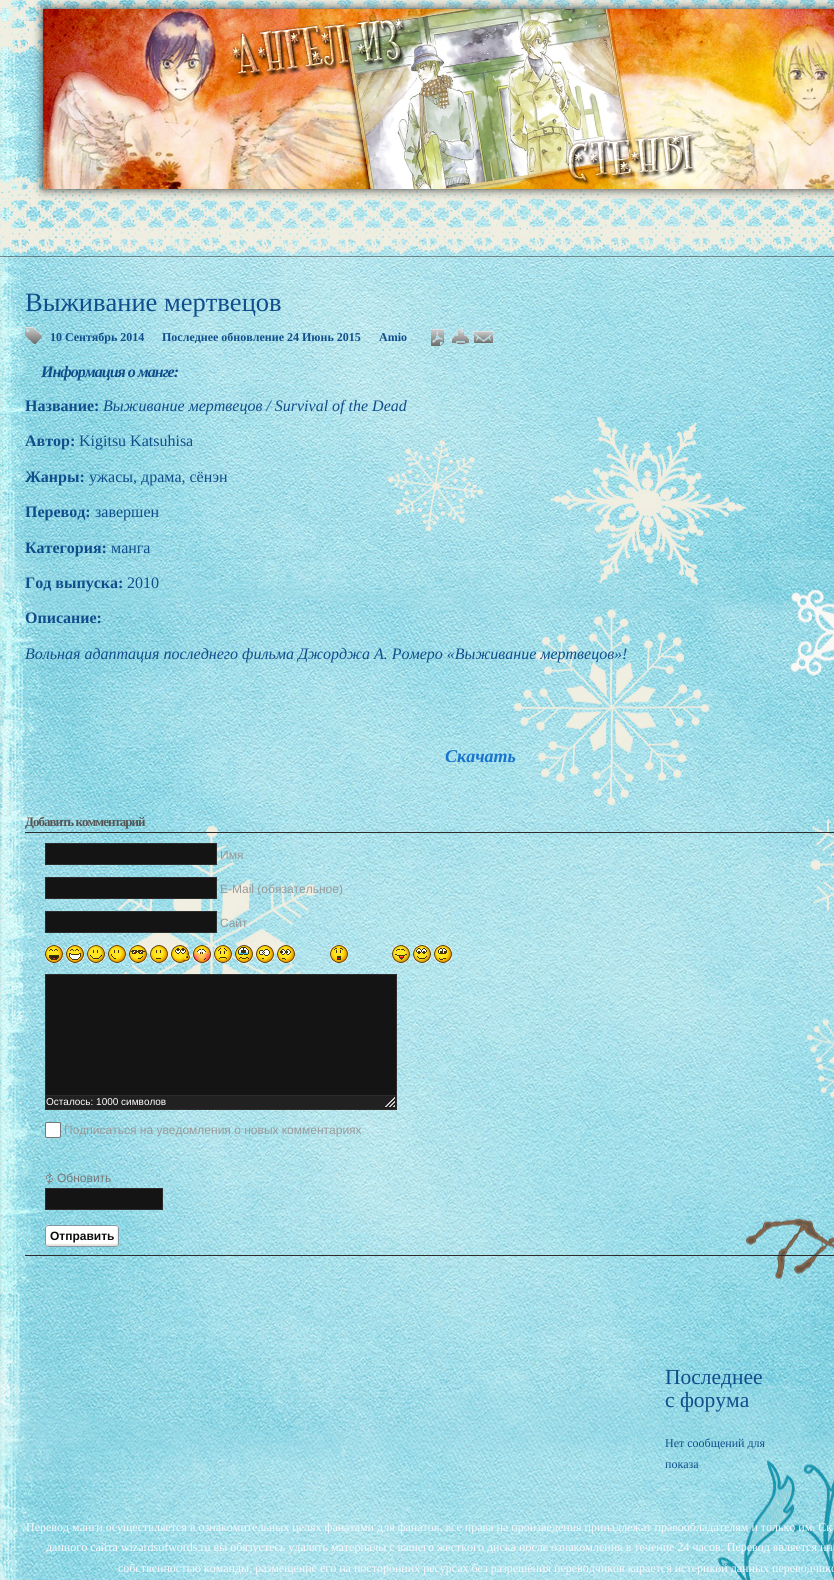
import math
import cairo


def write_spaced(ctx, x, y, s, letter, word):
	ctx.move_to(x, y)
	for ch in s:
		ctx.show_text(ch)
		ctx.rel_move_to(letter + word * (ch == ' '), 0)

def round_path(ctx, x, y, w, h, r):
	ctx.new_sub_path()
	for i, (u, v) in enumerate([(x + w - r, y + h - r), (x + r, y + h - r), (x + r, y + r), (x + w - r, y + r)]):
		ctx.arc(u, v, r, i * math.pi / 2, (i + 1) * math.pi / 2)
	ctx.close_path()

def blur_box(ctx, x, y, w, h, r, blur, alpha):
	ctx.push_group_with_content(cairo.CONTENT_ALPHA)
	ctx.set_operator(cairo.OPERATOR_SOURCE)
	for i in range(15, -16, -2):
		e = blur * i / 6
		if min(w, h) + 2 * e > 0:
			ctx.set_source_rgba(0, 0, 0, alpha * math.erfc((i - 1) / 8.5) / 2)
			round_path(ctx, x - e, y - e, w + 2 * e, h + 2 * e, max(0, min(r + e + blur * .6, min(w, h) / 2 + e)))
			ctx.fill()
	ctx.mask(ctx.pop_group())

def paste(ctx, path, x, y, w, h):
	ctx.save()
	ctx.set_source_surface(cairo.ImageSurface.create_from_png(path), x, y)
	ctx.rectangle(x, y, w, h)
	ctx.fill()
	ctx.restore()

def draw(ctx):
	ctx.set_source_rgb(1, 1, 1)
	ctx.paint()
	paste(ctx, 'media/1.png', 0, 0, 834, 1580)
	ctx.set_source_rgb(0.2, 0.2, 0.2)
	blur_box(ctx, 43, 9, 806, 180, 0, 5, 1)
	paste(ctx, 'media/2.png', 43, 9, 791, 180)
	paste(ctx, 'media/3.png', 58, 90, 30, 30)
	paste(ctx, 'media/4.png', 0, 256, 834, 2)
	ctx.select_font_face('Liberation Serif')
	ctx.set_font_size(26.5)
	ctx.set_source_rgb(0.063, 0.306, 0.545)
	ctx.move_to(25, 311)
	ctx.show_text('Выживание мертвецов')
	paste(ctx, 'media/5.png', 25, 327, 17, 17)
	ctx.select_font_face('Liberation Serif', cairo.FONT_SLANT_NORMAL, cairo.FONT_WEIGHT_BOLD)
	ctx.set_font_size(12)
	for x, y, s in [
		(50, 341, '10 Сентябрь 2014'),
		(162, 341, 'Последнее обновление 24 Июнь 2015'),
		(379, 341, 'Amio'),
	]:
		ctx.move_to(x, y)
		ctx.show_text(s)
	paste(ctx, 'media/6.png', 431, 329, 13, 17)
	paste(ctx, 'media/7.png', 452, 329, 17, 17)
	paste(ctx, 'media/8.png', 474, 331, 19, 12)
	ctx.select_font_face('Liberation Serif', cairo.FONT_SLANT_ITALIC, cairo.FONT_WEIGHT_BOLD)
	ctx.set_font_size(16)
	write_spaced(ctx, 41, 377, 'Информация о манге:', -1, 0)
	ctx.select_font_face('Liberation Serif', cairo.FONT_SLANT_NORMAL, cairo.FONT_WEIGHT_BOLD)
	ctx.move_to(25, 411)
	ctx.show_text('Название:')
	ctx.select_font_face('Liberation Serif', cairo.FONT_SLANT_ITALIC)
	ctx.move_to(103, 411)
	ctx.show_text('Выживание мертвецов / Survival of the Dead')
	ctx.select_font_face('Liberation Serif', cairo.FONT_SLANT_NORMAL, cairo.FONT_WEIGHT_BOLD)
	ctx.move_to(25, 446)
	ctx.show_text('Автор:')
	ctx.select_font_face('Liberation Serif')
	ctx.move_to(79, 446)
	ctx.show_text('Kigitsu Katsuhisa')
	ctx.select_font_face('Liberation Serif', cairo.FONT_SLANT_NORMAL, cairo.FONT_WEIGHT_BOLD)
	ctx.move_to(25, 482)
	ctx.show_text('Жанры:')
	ctx.select_font_face('Liberation Serif')
	ctx.move_to(89, 482)
	ctx.show_text('ужасы, драма, сёнэн')
	ctx.select_font_face('Liberation Serif', cairo.FONT_SLANT_NORMAL, cairo.FONT_WEIGHT_BOLD)
	ctx.move_to(25, 517)
	ctx.show_text('Перевод:')
	ctx.select_font_face('Liberation Serif')
	ctx.move_to(95, 517)
	ctx.show_text('завершен')
	ctx.select_font_face('Liberation Serif', cairo.FONT_SLANT_NORMAL, cairo.FONT_WEIGHT_BOLD)
	ctx.move_to(25, 553)
	ctx.show_text('Категория:')
	ctx.select_font_face('Liberation Serif')
	ctx.move_to(111, 553)
	ctx.show_text('манга')
	ctx.select_font_face('Liberation Serif', cairo.FONT_SLANT_NORMAL, cairo.FONT_WEIGHT_BOLD)
	ctx.move_to(25, 588)
	ctx.show_text('Год выпуска:')
	ctx.select_font_face('Liberation Serif')
	ctx.move_to(127, 588)
	ctx.show_text('2010')
	ctx.select_font_face('Liberation Serif', cairo.FONT_SLANT_NORMAL, cairo.FONT_WEIGHT_BOLD)
	ctx.move_to(25, 623)
	ctx.show_text('Описание:')
	ctx.select_font_face('Liberation Serif', cairo.FONT_SLANT_ITALIC)
	ctx.move_to(25, 659)
	ctx.show_text('Вольная адаптация последнего фильма Джорджа А. Ромеро «Выживание мертвецов»!')
	ctx.select_font_face('Liberation Serif', cairo.FONT_SLANT_ITALIC, cairo.FONT_WEIGHT_BOLD)
	ctx.set_font_size(18)
	ctx.set_source_rgb(0.094, 0.455, 0.804)
	ctx.move_to(445, 762)
	ctx.show_text('Скачать')
	ctx.set_source_rgb(0.173, 0.173, 0.173)
	ctx.rectangle(25, 832, 809, 1)
	ctx.fill()
	ctx.select_font_face('Liberation Serif', cairo.FONT_SLANT_NORMAL, cairo.FONT_WEIGHT_BOLD)
	ctx.set_font_size(13)
	ctx.set_source_rgb(0.333, 0.333, 0.333)
	write_spaced(ctx, 25, 826, 'Добавить комментарий', -1, 0)
	ctx.set_source_rgb(0.082, 0.082, 0.082)
	ctx.rectangle(45.5, 843.5, 171, 21)
	ctx.fill_preserve()
	ctx.set_source_rgb(0.173, 0.173, 0.173)
	ctx.set_line_width(1)
	ctx.stroke()
	ctx.select_font_face('Liberation Sans')
	ctx.set_font_size(12)
	ctx.set_source_rgb(0.6, 0.6, 0.6)
	ctx.move_to(220, 859)
	ctx.show_text('Имя')
	ctx.set_source_rgb(0.082, 0.082, 0.082)
	ctx.rectangle(45.5, 877.5, 171, 21)
	ctx.fill_preserve()
	ctx.set_source_rgb(0.173, 0.173, 0.173)
	ctx.stroke()
	ctx.set_source_rgb(0.6, 0.6, 0.6)
	ctx.move_to(220, 893)
	ctx.show_text('E-Mail (обязательное)')
	ctx.set_source_rgb(0.082, 0.082, 0.082)
	ctx.rectangle(45.5, 911.5, 171, 21)
	ctx.fill_preserve()
	ctx.set_source_rgb(0.173, 0.173, 0.173)
	ctx.stroke()
	ctx.set_source_rgb(0.6, 0.6, 0.6)
	ctx.move_to(220, 927)
	ctx.show_text('Сайт')
	paste(ctx, 'media/9.png', 45, 945, 18, 18)
	paste(ctx, 'media/10.png', 66, 945, 18, 18)
	paste(ctx, 'media/11.png', 87, 945, 18, 18)
	paste(ctx, 'media/12.png', 108, 945, 18, 18)
	paste(ctx, 'media/13.png', 129, 945, 18, 18)
	paste(ctx, 'media/14.png', 150, 945, 18, 18)
	paste(ctx, 'media/15.png', 171, 945, 19, 18)
	paste(ctx, 'media/16.png', 193, 945, 18, 18)
	paste(ctx, 'media/17.png', 214, 945, 18, 18)
	paste(ctx, 'media/18.png', 235, 945, 18, 18)
	paste(ctx, 'media/19.png', 256, 945, 18, 18)
	paste(ctx, 'media/20.png', 277, 945, 18, 18)
	paste(ctx, 'media/21.png', 330, 945, 18, 18)
	paste(ctx, 'media/22.png', 392, 945, 18, 18)
	paste(ctx, 'media/23.png', 413, 945, 18, 18)
	paste(ctx, 'media/24.png', 434, 945, 18, 18)
	ctx.set_source_rgb(0.082, 0.082, 0.082)
	ctx.rectangle(45.5, 974.5, 351, 121)
	ctx.fill_preserve()
	ctx.set_source_rgb(0.173, 0.173, 0.173)
	ctx.stroke()
	ctx.set_source_rgb(0.129, 0.129, 0.129)
	ctx.rectangle(46, 1096, 350, 13)
	ctx.fill()
	paste(ctx, 'media/25.png', 385, 1097, 10, 10)
	ctx.set_source_rgb(0.173, 0.173, 0.173)
	ctx.rectangle(396, 1096, 1, 14)
	ctx.rectangle(45, 1109, 352, 1)
	ctx.rectangle(45, 1096, 1, 14)
	ctx.fill()
	ctx.set_font_size(10)
	ctx.set_source_rgb(1, 1, 1)
	ctx.move_to(46, 1105)
	ctx.show_text('Осталось: 1000 символов')
	round_path(ctx, 45.5, 1122.5, 15, 15, 1.5)
	ctx.fill_preserve()
	ctx.set_source_rgb(0.463, 0.463, 0.463)
	ctx.stroke()
	ctx.set_font_size(12)
	ctx.set_source_rgb(0.6, 0.6, 0.6)
	ctx.move_to(64, 1134)
	ctx.show_text('Подписаться на уведомления о новых комментариях')
	paste(ctx, 'media/26.png', 46, 1173, 7, 11)
	ctx.set_source_rgb(0.467, 0.467, 0.467)
	ctx.move_to(57, 1182)
	ctx.show_text('Обновить')
	ctx.set_source_rgb(0.082, 0.082, 0.082)
	ctx.rectangle(45.5, 1188.5, 117, 21)
	ctx.fill_preserve()
	ctx.set_source_rgb(0.173, 0.173, 0.173)
	ctx.stroke()
	paste(ctx, 'media/27.png', 45, 1225, 71, 22)
	paste(ctx, 'media/28.png', 116, 1225, 3, 22)
	ctx.select_font_face('Liberation Sans', cairo.FONT_SLANT_NORMAL, cairo.FONT_WEIGHT_BOLD)
	ctx.set_source_rgb(0.051, 0.051, 0.051)
	ctx.move_to(50, 1240)
	ctx.show_text('Отправить')
	ctx.set_source_rgb(0.173, 0.173, 0.173)
	ctx.rectangle(25, 1255, 809, 1)
	ctx.fill()
	ctx.select_font_face('Liberation Serif')
	ctx.set_font_size(21.5)
	ctx.set_source_rgb(0.063, 0.306, 0.545)
	ctx.move_to(665, 1384)
	ctx.show_text('Последнее')
	ctx.move_to(665, 1407)
	ctx.show_text('с форума')
	ctx.set_font_size(12)
	ctx.move_to(665, 1447)
	ctx.show_text('Нет сообщений для')
	ctx.move_to(665, 1468)
	ctx.show_text('показа')
	ctx.set_source_rgb(0.973, 0.973, 1)
	for x, y, s in [
		(26, 1531, 'Перевод манги осуществляется в ознакомительных целях фанатами для фанатов, все права на произведения принадлежат правообладателям и только им. Ск'),
		(46, 1551, 'данного сайта wizardsofwords.ru вы обязуетесь удалять материалы с вашего жесткого диска после ознакомления в течение 24 часов. Перевод является ин'),
		(118, 1572, 'собственностью команды, размещение его на посторонних ресурсах без разрешения переводчиков карается истерикой данных переводчико'),
	]:
		ctx.move_to(x, y)
		ctx.show_text(s)


surface = cairo.ImageSurface(cairo.FORMAT_RGB24, 834, 1580)
ctx = cairo.Context(surface)
options = cairo.FontOptions()
options.set_hint_metrics(cairo.HINT_METRICS_OFF)
options.set_hint_style(cairo.HINT_STYLE_NONE)
ctx.set_font_options(options)
ctx.set_miter_limit(4)
draw(ctx)
surface.write_to_png('image.png')
